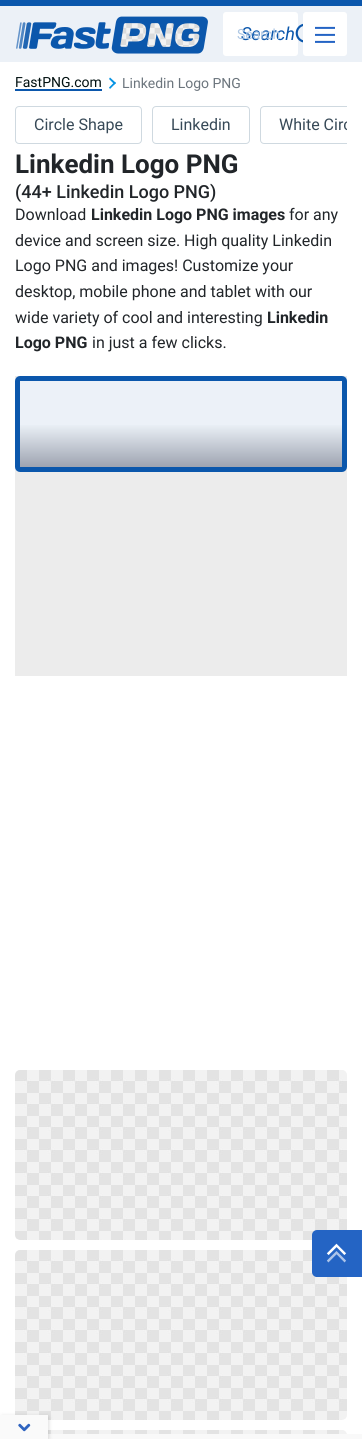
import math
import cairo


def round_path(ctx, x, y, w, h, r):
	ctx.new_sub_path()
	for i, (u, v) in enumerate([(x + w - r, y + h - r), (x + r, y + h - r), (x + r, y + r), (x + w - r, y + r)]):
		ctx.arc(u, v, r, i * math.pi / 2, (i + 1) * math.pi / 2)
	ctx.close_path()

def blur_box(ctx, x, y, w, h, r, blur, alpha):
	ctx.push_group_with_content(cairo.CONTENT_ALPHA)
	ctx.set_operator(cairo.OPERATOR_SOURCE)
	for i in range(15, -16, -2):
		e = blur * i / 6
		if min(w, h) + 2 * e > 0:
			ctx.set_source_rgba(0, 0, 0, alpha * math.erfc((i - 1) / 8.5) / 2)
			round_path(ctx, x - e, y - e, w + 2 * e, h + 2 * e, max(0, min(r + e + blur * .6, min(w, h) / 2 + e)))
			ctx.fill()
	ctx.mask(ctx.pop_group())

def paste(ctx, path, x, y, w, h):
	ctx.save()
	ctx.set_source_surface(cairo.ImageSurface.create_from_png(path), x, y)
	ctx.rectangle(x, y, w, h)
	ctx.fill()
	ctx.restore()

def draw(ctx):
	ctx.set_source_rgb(1, 1, 1)
	ctx.paint()
	ctx.set_source_rgb(0.922, 0.945, 0.965)
	ctx.rectangle(0, 6, 362, 56)
	ctx.fill()
	ctx.set_source_rgb(0.043, 0.341, 0.675)
	ctx.rectangle(0, 0, 362, 6)
	ctx.fill()
	paste(ctx, 'media/1.png', 16, 16, 192, 38)
	ctx.set_source_rgb(1, 1, 1)
	round_path(ctx, 223, 12, 75, 44, 3)
	ctx.fill()
	ctx.select_font_face('Roboto', cairo.FONT_SLANT_ITALIC)
	ctx.set_font_size(18)
	ctx.set_source_rgb(0.043, 0.341, 0.675)
	ctx.move_to(241, 40)
	ctx.show_text('Search')
	paste(ctx, 'media/2.png', 295, 23, 8, 20)
	ctx.select_font_face('Roboto')
	ctx.set_font_size(14)
	ctx.set_source_rgb(0.682, 0.78, 0.89)
	ctx.move_to(237, 39)
	ctx.show_text('Search')
	ctx.set_source_rgb(1, 1, 1)
	round_path(ctx, 303, 12, 44, 44, 3)
	ctx.fill()
	paste(ctx, 'media/3.png', 315, 26, 20, 17)
	ctx.set_source_rgb(0.043, 0.341, 0.675)
	ctx.rectangle(15, 89, 87, 2)
	ctx.fill()
	ctx.set_source_rgb(0.004, 0.063, 0.063)
	ctx.move_to(15, 87)
	ctx.show_text('FastPNG.com')
	ctx.set_source_rgb(0.024, 0.576, 0.89)
	ctx.new_path()
	ctx.move_to(110, 77.5)
	ctx.line_to(116, 83)
	ctx.line_to(114.5, 84.5)
	ctx.line_to(109, 79)
	ctx.close_path()
	ctx.fill()
	ctx.new_path()
	ctx.move_to(114.5, 82)
	ctx.line_to(116, 83)
	ctx.line_to(110, 89)
	ctx.line_to(109, 87.5)
	ctx.close_path()
	ctx.fill()
	ctx.set_source_rgb(0.424, 0.459, 0.49)
	ctx.move_to(122, 88)
	ctx.show_text('Linkedin Logo PNG')
	round_path(ctx, 15.5, 106.5, 126, 37, 3.5)
	ctx.set_source_rgb(0.812, 0.851, 0.878)
	ctx.set_line_width(1)
	ctx.stroke()
	ctx.set_font_size(16)
	ctx.set_source_rgb(0.216, 0.286, 0.341)
	ctx.move_to(34, 130)
	ctx.show_text('Circle Shape')
	round_path(ctx, 152.5, 106.5, 97, 37, 3.5)
	ctx.set_source_rgb(0.812, 0.851, 0.878)
	ctx.stroke()
	ctx.set_source_rgb(0.216, 0.286, 0.341)
	ctx.move_to(171, 130)
	ctx.show_text('Linkedin')
	ctx.save()
	ctx.rectangle(15, 106, 332, 38)
	ctx.clip()
	round_path(ctx, 260.5, 106.5, 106, 37, 3.5)
	ctx.set_source_rgb(0.812, 0.851, 0.878)
	ctx.stroke()
	ctx.set_source_rgb(0.216, 0.286, 0.341)
	ctx.move_to(279, 130)
	ctx.show_text('White Circ')
	ctx.restore()
	ctx.select_font_face('Roboto', cairo.FONT_SLANT_NORMAL, cairo.FONT_WEIGHT_BOLD)
	ctx.set_font_size(26)
	ctx.set_source_rgb(0.129, 0.145, 0.161)
	ctx.move_to(15, 173)
	ctx.show_text('Linkedin Logo PNG')
	ctx.select_font_face('Roboto Medium')
	ctx.set_font_size(18)
	ctx.move_to(15, 198)
	ctx.show_text('(44+ Linkedin Logo PNG)')
	ctx.select_font_face('Roboto')
	ctx.set_font_size(16)
	ctx.move_to(15, 220)
	ctx.show_text('Download')
	ctx.select_font_face('Roboto', cairo.FONT_SLANT_NORMAL, cairo.FONT_WEIGHT_BOLD)
	ctx.move_to(91, 220)
	ctx.show_text('Linkedin Logo PNG images')
	ctx.select_font_face('Roboto')
	for x, y, s in [
		(289, 220, 'for any'),
		(15, 246, 'device and screen size. High quality Linkedin'),
		(15, 271, 'Logo PNG and images! Customize your'),
		(15, 297, 'desktop, mobile phone and tablet with our'),
		(15, 323, 'wide variety of cool and interesting'),
	]:
		ctx.move_to(x, y)
		ctx.show_text(s)
	ctx.select_font_face('Roboto', cairo.FONT_SLANT_NORMAL, cairo.FONT_WEIGHT_BOLD)
	ctx.move_to(267, 323)
	ctx.show_text('Linkedin')
	ctx.move_to(15, 348)
	ctx.show_text('Logo PNG')
	ctx.select_font_face('Roboto')
	ctx.move_to(92, 348)
	ctx.show_text('in just a few clicks.')
	ctx.set_source_rgb(0.925, 0.925, 0.925)
	ctx.rectangle(15, 376, 332, 300)
	ctx.fill()
	ctx.set_source_rgb(0.922, 0.945, 0.969)
	round_path(ctx, 17.5, 378.5, 327, 91, 2.5)
	ctx.fill_preserve()
	ctx.set_source_rgb(0.043, 0.341, 0.675)
	ctx.set_line_width(5)
	ctx.stroke()
	gradient = cairo.LinearGradient(181, 424, 181, 467)
	gradient.add_color_stop_rgba(0, 0.922, 0.945, 0.969, 1)
	gradient.add_color_stop_rgba(1, 0.62, 0.643, 0.694, 1)
	ctx.set_source(gradient)
	ctx.rectangle(20, 425, 322, 42)
	ctx.fill()
	paste(ctx, 'media/4.png', 15, 1070, 332, 170)
	paste(ctx, 'media/4.png', 15, 1250, 332, 170)
	paste(ctx, 'media/5.png', 48, 1430, 299, 4)
	paste(ctx, 'media/6.png', 312, 1230, 50, 47)
	ctx.set_source_rgb(0.973, 0.973, 0.973)
	ctx.rectangle(48, 1434, 314, 5)
	ctx.fill()
	ctx.set_source_rgb(0, 0, 0)
	blur_box(ctx, 2, 1417, 46, 22, 0, 2.5, 0.2)
	ctx.set_source_rgb(0.98, 0.98, 0.98)
	ctx.rectangle(0, 1415, 48, 24)
	ctx.fill()
	paste(ctx, 'media/7.png', 18, 1423, 13, 9)


surface = cairo.ImageSurface(cairo.FORMAT_RGB24, 362, 1439)
ctx = cairo.Context(surface)
options = cairo.FontOptions()
options.set_hint_metrics(cairo.HINT_METRICS_OFF)
options.set_hint_style(cairo.HINT_STYLE_NONE)
ctx.set_font_options(options)
ctx.set_miter_limit(4)
draw(ctx)
surface.write_to_png('image.png')
